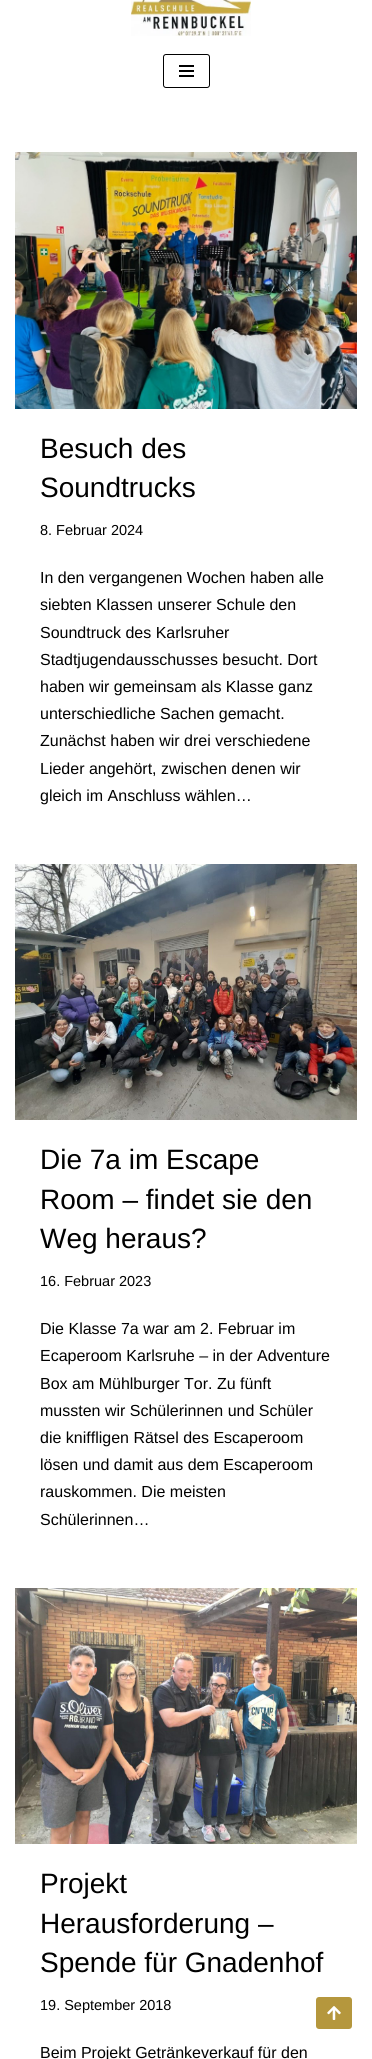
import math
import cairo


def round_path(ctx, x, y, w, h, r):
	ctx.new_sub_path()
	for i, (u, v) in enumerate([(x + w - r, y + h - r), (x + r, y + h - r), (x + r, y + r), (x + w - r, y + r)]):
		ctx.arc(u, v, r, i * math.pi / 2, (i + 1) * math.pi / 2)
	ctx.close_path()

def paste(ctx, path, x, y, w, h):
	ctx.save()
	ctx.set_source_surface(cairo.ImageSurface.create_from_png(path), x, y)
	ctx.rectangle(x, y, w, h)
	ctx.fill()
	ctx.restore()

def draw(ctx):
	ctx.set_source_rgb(1, 1, 1)
	ctx.paint()
	paste(ctx, 'media/1.png', 131, 0, 120, 36)
	round_path(ctx, 163.5, 54.5, 46, 33, 2.5)
	ctx.set_source_rgb(0, 0, 0)
	ctx.set_line_width(1)
	ctx.stroke()
	ctx.rectangle(179, 65, 15, 2)
	ctx.rectangle(179, 70, 15, 2)
	ctx.rectangle(179, 75, 15, 2)
	ctx.fill()
	paste(ctx, 'media/2.png', 15, 152, 342, 257)
	ctx.select_font_face('Liberation Sans')
	ctx.set_font_size(28)
	ctx.move_to(40, 458)
	ctx.show_text('Besuch des')
	ctx.move_to(40, 497)
	ctx.show_text('Soundtrucks')
	ctx.set_font_size(14.5)
	ctx.move_to(40, 535)
	ctx.show_text('8. Februar 2024')
	ctx.set_font_size(16)
	for x, y, s in [
		(40, 583, 'In den vergangenen Wochen haben alle'),
		(40, 610, 'siebten Klassen unserer Schule den'),
		(40, 638, 'Soundtruck des Karlsruher'),
		(40, 665, 'Stadtjugendausschusses besucht. Dort'),
		(40, 692, 'haben wir gemeinsam als Klasse ganz'),
		(40, 719, 'unterschiedliche Sachen gemacht.'),
		(40, 746, 'Zunächst haben wir drei verschiedene'),
		(40, 774, 'Lieder angehört, zwischen denen wir'),
		(40, 801, 'gleich im Anschluss wählen…'),
	]:
		ctx.move_to(x, y)
		ctx.show_text(s)
	paste(ctx, 'media/3.png', 15, 864, 342, 256)
	ctx.set_font_size(28)
	for x, y, s in [
		(40, 1169, 'Die 7a im Escape'),
		(40, 1209, 'Room – findet sie den'),
		(40, 1248, 'Weg heraus?'),
	]:
		ctx.move_to(x, y)
		ctx.show_text(s)
	ctx.set_font_size(14.5)
	ctx.move_to(40, 1286)
	ctx.show_text('16. Februar 2023')
	ctx.set_font_size(16)
	for x, y, s in [
		(40, 1334, 'Die Klasse 7a war am 2. Februar im'),
		(40, 1361, 'Ecaperoom Karlsruhe – in der Adventure'),
		(40, 1389, 'Box am Mühlburger Tor. Zu fünft'),
		(40, 1416, 'mussten wir Schülerinnen und Schüler'),
		(40, 1443, 'die kniffligen Rätsel des Escaperoom'),
		(40, 1470, 'lösen und damit aus dem Escaperoom'),
		(40, 1497, 'rauskommen. Die meisten'),
		(40, 1525, 'Schülerinnen…'),
	]:
		ctx.move_to(x, y)
		ctx.show_text(s)
	paste(ctx, 'media/4.png', 15, 1588, 342, 256)
	ctx.set_font_size(28)
	for x, y, s in [
		(40, 1893, 'Projekt'),
		(40, 1933, 'Herausforderung –'),
		(40, 1972, 'Spende für Gnadenhof'),
	]:
		ctx.move_to(x, y)
		ctx.show_text(s)
	ctx.set_font_size(14.5)
	ctx.move_to(40, 2010)
	ctx.show_text('19. September 2018')
	ctx.set_font_size(16)
	ctx.move_to(40, 2058)
	ctx.show_text('Beim Projekt Getränkeverkauf für den')
	ctx.set_source_rgb(0.71, 0.592, 0.239)
	round_path(ctx, 316, 1997, 36, 32, 3)
	ctx.fill()
	paste(ctx, 'media/5.png', 327, 2006, 14, 14)


surface = cairo.ImageSurface(cairo.FORMAT_RGB24, 372, 2059)
ctx = cairo.Context(surface)
options = cairo.FontOptions()
options.set_hint_metrics(cairo.HINT_METRICS_OFF)
options.set_hint_style(cairo.HINT_STYLE_NONE)
ctx.set_font_options(options)
ctx.set_miter_limit(4)
draw(ctx)
surface.write_to_png('image.png')
